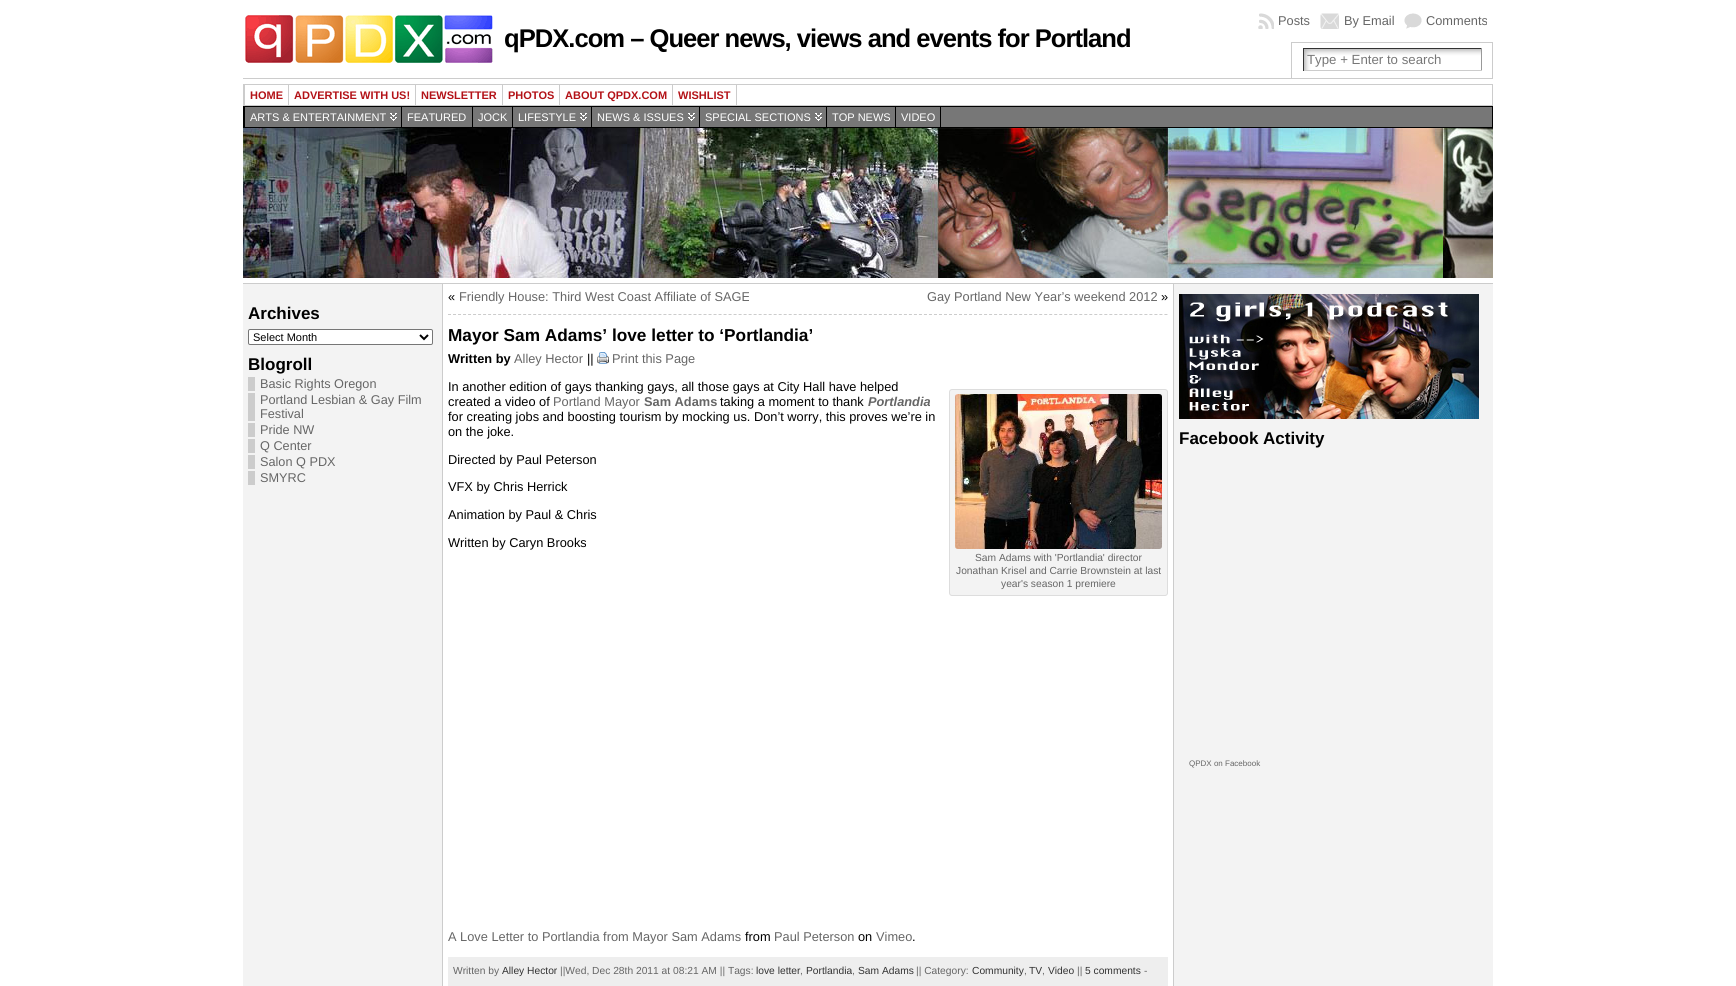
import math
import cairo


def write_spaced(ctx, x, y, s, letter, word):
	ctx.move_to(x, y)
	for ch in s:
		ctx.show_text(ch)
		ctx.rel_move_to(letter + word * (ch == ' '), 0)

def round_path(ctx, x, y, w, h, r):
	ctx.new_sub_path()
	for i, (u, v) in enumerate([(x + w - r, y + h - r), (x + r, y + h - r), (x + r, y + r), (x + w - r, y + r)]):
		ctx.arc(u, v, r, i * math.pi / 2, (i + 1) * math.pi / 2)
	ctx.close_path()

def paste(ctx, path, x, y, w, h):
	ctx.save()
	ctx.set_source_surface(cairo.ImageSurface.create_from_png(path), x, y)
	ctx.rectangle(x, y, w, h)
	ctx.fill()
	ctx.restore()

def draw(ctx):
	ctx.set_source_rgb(1, 1, 1)
	ctx.paint()
	paste(ctx, 'media/1.png', 245, 15, 248, 48)
	paste(ctx, 'media/2.png', 1258, 13, 16, 16)
	ctx.select_font_face('Liberation Sans')
	ctx.set_font_size(12.8)
	ctx.set_source_rgb(0.4, 0.4, 0.4)
	ctx.move_to(1278, 25)
	ctx.show_text('Posts')
	paste(ctx, 'media/3.png', 1320, 13, 19, 16)
	ctx.move_to(1344, 25)
	ctx.show_text('By Email')
	paste(ctx, 'media/4.png', 1404, 13, 18, 16)
	ctx.move_to(1426, 25)
	ctx.show_text('Comments')
	ctx.select_font_face('Liberation Sans', cairo.FONT_SLANT_NORMAL, cairo.FONT_WEIGHT_BOLD)
	ctx.set_font_size(25.6)
	ctx.set_source_rgb(0, 0, 0)
	write_spaced(ctx, 504, 47, 'qPDX.com – Queer news, views and events for Portland', -1, 0)
	ctx.set_source_rgb(0.8, 0.8, 0.8)
	ctx.rectangle(1291, 42, 202, 1)
	ctx.rectangle(1492, 42, 1, 36)
	ctx.rectangle(1291, 42, 1, 36)
	ctx.fill()
	paste(ctx, 'media/5.png', 1304, 49, 177, 21)
	ctx.set_source_rgb(0.2, 0.2, 0.2)
	ctx.rectangle(1303, 48, 179, 1)
	ctx.fill()
	ctx.set_source_rgb(0.6, 0.6, 0.6)
	ctx.rectangle(1481, 48, 1, 23)
	ctx.fill()
	ctx.set_source_rgb(0.8, 0.8, 0.8)
	ctx.rectangle(1303, 70, 179, 1)
	ctx.fill()
	ctx.set_source_rgb(0.2, 0.2, 0.2)
	ctx.rectangle(1303, 48, 1, 23)
	ctx.fill()
	ctx.select_font_face('Liberation Sans')
	ctx.set_font_size(13.25)
	ctx.set_source_rgb(0.467, 0.467, 0.467)
	ctx.move_to(1307, 64)
	ctx.show_text('Type + Enter to search')
	ctx.set_source_rgb(0.8, 0.8, 0.8)
	ctx.rectangle(243, 78, 1250, 1)
	ctx.fill()
	ctx.rectangle(243.5, 84.5, 1249, 21)
	ctx.set_line_width(1)
	ctx.stroke()
	ctx.rectangle(244.5, 84.5, 44, 21)
	ctx.stroke()
	ctx.select_font_face('Liberation Sans', cairo.FONT_SLANT_NORMAL, cairo.FONT_WEIGHT_BOLD)
	ctx.set_font_size(11)
	ctx.set_source_rgb(0.702, 0.071, 0.09)
	ctx.move_to(250, 99)
	ctx.show_text('HOME')
	ctx.rectangle(288.5, 84.5, 127, 21)
	ctx.set_source_rgb(0.8, 0.8, 0.8)
	ctx.stroke()
	ctx.set_source_rgb(0.702, 0.071, 0.09)
	ctx.move_to(294, 99)
	ctx.show_text('ADVERTISE WITH US!')
	ctx.rectangle(415.5, 84.5, 87, 21)
	ctx.set_source_rgb(0.8, 0.8, 0.8)
	ctx.stroke()
	ctx.set_source_rgb(0.702, 0.071, 0.09)
	ctx.move_to(421, 99)
	ctx.show_text('NEWSLETTER')
	ctx.rectangle(502.5, 84.5, 57, 21)
	ctx.set_source_rgb(0.8, 0.8, 0.8)
	ctx.stroke()
	ctx.set_source_rgb(0.702, 0.071, 0.09)
	ctx.move_to(508, 99)
	ctx.show_text('PHOTOS')
	ctx.rectangle(559.5, 84.5, 113, 21)
	ctx.set_source_rgb(0.8, 0.8, 0.8)
	ctx.stroke()
	ctx.set_source_rgb(0.702, 0.071, 0.09)
	ctx.move_to(565, 99)
	ctx.show_text('ABOUT QPDX.COM')
	ctx.rectangle(672.5, 84.5, 64, 21)
	ctx.set_source_rgb(0.8, 0.8, 0.8)
	ctx.stroke()
	ctx.set_source_rgb(0.702, 0.071, 0.09)
	ctx.move_to(678, 99)
	ctx.show_text('WISHLIST')
	ctx.set_source_rgb(0.467, 0.467, 0.467)
	ctx.rectangle(941, 107, 551, 20)
	ctx.fill()
	ctx.rectangle(243.5, 106.5, 1249, 21)
	ctx.set_source_rgb(0, 0, 0)
	ctx.stroke()
	ctx.set_source_rgb(0.467, 0.467, 0.467)
	ctx.rectangle(245, 107, 156, 20)
	ctx.fill()
	paste(ctx, 'media/6.png', 390, 113, 7, 8)
	ctx.rectangle(244.5, 106.5, 157, 21)
	ctx.set_source_rgb(0, 0, 0)
	ctx.stroke()
	ctx.select_font_face('Liberation Sans')
	ctx.set_source_rgb(1, 1, 1)
	ctx.move_to(250, 121)
	ctx.show_text('ARTS & ENTERTAINMENT')
	ctx.set_source_rgb(0.467, 0.467, 0.467)
	ctx.rectangle(401.5, 106.5, 71, 21)
	ctx.fill_preserve()
	ctx.set_source_rgb(0, 0, 0)
	ctx.stroke()
	ctx.set_source_rgb(1, 1, 1)
	ctx.move_to(407, 121)
	ctx.show_text('FEATURED')
	ctx.set_source_rgb(0.467, 0.467, 0.467)
	ctx.rectangle(472.5, 106.5, 40, 21)
	ctx.fill_preserve()
	ctx.set_source_rgb(0, 0, 0)
	ctx.stroke()
	ctx.set_source_rgb(1, 1, 1)
	ctx.move_to(478, 121)
	ctx.show_text('JOCK')
	ctx.set_source_rgb(0.467, 0.467, 0.467)
	ctx.rectangle(513, 107, 78, 20)
	ctx.fill()
	paste(ctx, 'media/6.png', 580, 113, 7, 8)
	ctx.rectangle(512.5, 106.5, 79, 21)
	ctx.set_source_rgb(0, 0, 0)
	ctx.stroke()
	ctx.set_source_rgb(1, 1, 1)
	ctx.move_to(518, 121)
	ctx.show_text('LIFESTYLE')
	ctx.set_source_rgb(0.467, 0.467, 0.467)
	ctx.rectangle(592, 107, 107, 20)
	ctx.fill()
	paste(ctx, 'media/6.png', 688, 113, 7, 8)
	ctx.rectangle(591.5, 106.5, 108, 21)
	ctx.set_source_rgb(0, 0, 0)
	ctx.stroke()
	ctx.set_source_rgb(1, 1, 1)
	ctx.move_to(597, 121)
	ctx.show_text('NEWS & ISSUES')
	ctx.set_source_rgb(0.467, 0.467, 0.467)
	ctx.rectangle(700, 107, 126, 20)
	ctx.fill()
	paste(ctx, 'media/6.png', 815, 113, 7, 8)
	ctx.rectangle(699.5, 106.5, 127, 21)
	ctx.set_source_rgb(0, 0, 0)
	ctx.stroke()
	ctx.set_source_rgb(1, 1, 1)
	ctx.move_to(705, 121)
	ctx.show_text('SPECIAL SECTIONS')
	ctx.set_source_rgb(0.467, 0.467, 0.467)
	ctx.rectangle(826.5, 106.5, 69, 21)
	ctx.fill_preserve()
	ctx.set_source_rgb(0, 0, 0)
	ctx.stroke()
	ctx.set_source_rgb(1, 1, 1)
	ctx.move_to(832, 121)
	ctx.show_text('TOP NEWS')
	ctx.set_source_rgb(0.467, 0.467, 0.467)
	ctx.rectangle(895.5, 106.5, 45, 21)
	ctx.fill_preserve()
	ctx.set_source_rgb(0, 0, 0)
	ctx.stroke()
	ctx.set_source_rgb(1, 1, 1)
	ctx.move_to(901, 121)
	ctx.show_text('VIDEO')
	paste(ctx, 'media/7.png', 1443, 128, 50, 150)
	paste(ctx, 'media/8.png', 243, 128, 1200, 150)
	ctx.set_source_rgb(0.8, 0.8, 0.8)
	ctx.rectangle(243, 283, 1250, 1)
	ctx.fill()
	ctx.set_source_rgb(0.953, 0.953, 0.953)
	ctx.rectangle(243, 284, 199, 702)
	ctx.fill()
	ctx.set_source_rgb(0.8, 0.8, 0.8)
	ctx.rectangle(442, 284, 1, 702)
	ctx.fill()
	ctx.select_font_face('Liberation Sans', cairo.FONT_SLANT_NORMAL, cairo.FONT_WEIGHT_BOLD)
	ctx.set_font_size(17)
	ctx.set_source_rgb(0, 0, 0)
	ctx.move_to(248, 319)
	ctx.show_text('Archives')
	ctx.set_source_rgb(1, 1, 1)
	round_path(ctx, 248.5, 329.5, 184, 15, 1.5)
	ctx.fill_preserve()
	ctx.set_source_rgb(0.463, 0.463, 0.463)
	ctx.stroke()
	ctx.new_path()
	ctx.move_to(420, 335)
	ctx.line_to(424, 339)
	ctx.line_to(428, 335)
	ctx.set_source_rgb(0, 0, 0)
	ctx.set_line_width(2)
	ctx.stroke()
	ctx.select_font_face('Liberation Sans')
	ctx.set_font_size(11)
	ctx.move_to(253, 341)
	ctx.show_text('Select Month')
	ctx.select_font_face('Liberation Sans', cairo.FONT_SLANT_NORMAL, cairo.FONT_WEIGHT_BOLD)
	ctx.set_font_size(17)
	ctx.move_to(248, 370)
	ctx.show_text('Blogroll')
	ctx.set_source_rgb(0.8, 0.8, 0.8)
	ctx.rectangle(248, 377, 7, 14)
	ctx.fill()
	ctx.select_font_face('Liberation Sans')
	ctx.set_font_size(12.7)
	ctx.set_source_rgb(0.4, 0.4, 0.4)
	ctx.move_to(260, 388)
	ctx.show_text('Basic Rights Oregon')
	ctx.set_source_rgb(0.8, 0.8, 0.8)
	ctx.rectangle(248, 393, 7, 28)
	ctx.fill()
	ctx.set_source_rgb(0.4, 0.4, 0.4)
	ctx.move_to(260, 404)
	ctx.show_text('Portland Lesbian & Gay Film')
	ctx.move_to(260, 418)
	ctx.show_text('Festival')
	ctx.set_source_rgb(0.8, 0.8, 0.8)
	ctx.rectangle(248, 423, 7, 14)
	ctx.fill()
	ctx.set_source_rgb(0.4, 0.4, 0.4)
	ctx.move_to(260, 434)
	ctx.show_text('Pride NW')
	ctx.set_source_rgb(0.8, 0.8, 0.8)
	ctx.rectangle(248, 439, 7, 14)
	ctx.fill()
	ctx.set_source_rgb(0.4, 0.4, 0.4)
	ctx.move_to(260, 450)
	ctx.show_text('Q Center')
	ctx.set_source_rgb(0.8, 0.8, 0.8)
	ctx.rectangle(248, 455, 7, 14)
	ctx.fill()
	ctx.set_source_rgb(0.4, 0.4, 0.4)
	ctx.move_to(260, 466)
	ctx.show_text('Salon Q PDX')
	ctx.set_source_rgb(0.8, 0.8, 0.8)
	ctx.rectangle(248, 471, 7, 14)
	ctx.fill()
	ctx.set_source_rgb(0.4, 0.4, 0.4)
	ctx.move_to(260, 482)
	ctx.show_text('SMYRC')
	ctx.new_path()
	ctx.move_to(448, 314.5)
	ctx.line_to(1168, 314.5)
	ctx.set_source_rgb(0.8, 0.8, 0.8)
	ctx.set_line_width(1)
	ctx.set_dash([3, 2.01])
	ctx.stroke()
	ctx.set_font_size(12.8)
	ctx.set_source_rgb(0, 0, 0)
	ctx.move_to(448, 301)
	ctx.show_text('«')
	ctx.set_source_rgb(0.4, 0.4, 0.4)
	ctx.move_to(459, 301)
	ctx.show_text('Friendly House: Third West Coast Affiliate of SAGE')
	ctx.move_to(927, 301)
	ctx.show_text('Gay Portland New Year’s weekend 2012')
	ctx.set_source_rgb(0, 0, 0)
	ctx.move_to(1161, 301)
	ctx.show_text('»')
	ctx.select_font_face('Liberation Sans', cairo.FONT_SLANT_NORMAL, cairo.FONT_WEIGHT_BOLD)
	ctx.set_font_size(17.25)
	ctx.move_to(448, 341)
	ctx.show_text('Mayor Sam Adams’ love letter to ‘Portlandia’')
	ctx.set_font_size(12.8)
	ctx.move_to(448, 363)
	ctx.show_text('Written by')
	ctx.select_font_face('Liberation Sans')
	ctx.set_source_rgb(0.4, 0.4, 0.4)
	ctx.move_to(514, 363)
	ctx.show_text('Alley Hector')
	ctx.set_source_rgb(0, 0, 0)
	ctx.move_to(587, 363)
	ctx.show_text('||')
	paste(ctx, 'media/9.png', 597, 352, 12, 12)
	ctx.set_source_rgb(0.4, 0.4, 0.4)
	ctx.move_to(612, 363)
	ctx.show_text('Print this Page')
	ctx.set_source_rgb(0, 0, 0)
	ctx.move_to(448, 391)
	ctx.show_text('In another edition of gays thanking gays, all those gays at City Hall have helped')
	ctx.move_to(448, 406)
	ctx.show_text('created a video of')
	ctx.set_source_rgb(0.4, 0.4, 0.4)
	ctx.move_to(553, 406)
	ctx.show_text('Portland Mayor')
	ctx.select_font_face('Liberation Sans', cairo.FONT_SLANT_NORMAL, cairo.FONT_WEIGHT_BOLD)
	ctx.move_to(644, 406)
	ctx.show_text('Sam Adams')
	ctx.select_font_face('Liberation Sans')
	ctx.set_source_rgb(0, 0, 0)
	ctx.move_to(720, 406)
	ctx.show_text('taking a moment to thank')
	ctx.select_font_face('Liberation Sans', cairo.FONT_SLANT_ITALIC, cairo.FONT_WEIGHT_BOLD)
	ctx.set_source_rgb(0.4, 0.4, 0.4)
	ctx.move_to(868, 406)
	ctx.show_text('Portlandia')
	ctx.select_font_face('Liberation Sans')
	ctx.set_source_rgb(0, 0, 0)
	for x, y, s in [
		(448, 421, 'for creating jobs and boosting tourism by mocking us. Don’t worry, this proves we’re in'),
		(448, 436, 'on the joke.'),
		(448, 464, 'Directed by Paul Peterson'),
		(448, 491, 'VFX by Chris Herrick'),
		(448, 519, 'Animation by Paul & Chris'),
		(448, 547, 'Written by Caryn Brooks'),
	]:
		ctx.move_to(x, y)
		ctx.show_text(s)
	ctx.set_source_rgb(0.953, 0.953, 0.953)
	round_path(ctx, 949.5, 389.5, 218, 206, 2.5)
	ctx.fill_preserve()
	ctx.set_source_rgb(0.867, 0.867, 0.867)
	ctx.set_dash([])
	ctx.stroke()
	paste(ctx, 'media/10.png', 955, 394, 207, 155)
	ctx.set_font_size(10.25)
	ctx.set_source_rgb(0.4, 0.4, 0.4)
	for x, y, s in [
		(975, 561, 'Sam Adams with \'Portlandia\' director'),
		(956, 574, 'Jonathan Krisel and Carrie Brownstein at last'),
		(1001, 587, 'year\'s season 1 premiere'),
	]:
		ctx.move_to(x, y)
		ctx.show_text(s)
	ctx.set_font_size(12.8)
	ctx.move_to(448, 941)
	ctx.show_text('A Love Letter to Portlandia from Mayor Sam Adams')
	ctx.set_source_rgb(0, 0, 0)
	ctx.move_to(745, 941)
	ctx.show_text('from')
	ctx.set_source_rgb(0.4, 0.4, 0.4)
	ctx.move_to(774, 941)
	ctx.show_text('Paul Peterson')
	ctx.set_source_rgb(0, 0, 0)
	ctx.move_to(858, 941)
	ctx.show_text('on')
	ctx.set_source_rgb(0.4, 0.4, 0.4)
	ctx.move_to(876, 941)
	ctx.show_text('Vimeo')
	ctx.set_source_rgb(0, 0, 0)
	ctx.move_to(912, 941)
	ctx.show_text('.')
	ctx.set_source_rgb(0.933, 0.933, 0.933)
	ctx.rectangle(448, 957, 720, 29)
	ctx.fill()
	ctx.set_font_size(10.25)
	ctx.set_source_rgb(0.4, 0.4, 0.4)
	ctx.move_to(453, 974)
	ctx.show_text('Written by')
	ctx.set_source_rgb(0.2, 0.2, 0.2)
	ctx.move_to(502, 974)
	ctx.show_text('Alley Hector')
	ctx.set_source_rgb(0.4, 0.4, 0.4)
	ctx.move_to(560, 974)
	ctx.show_text('||Wed, Dec 28th 2011 at 08:21 AM || Tags:')
	ctx.set_source_rgb(0.2, 0.2, 0.2)
	for x, y, s in [
		(756, 974, 'love letter'),
		(806, 974, 'Portlandia'),
		(858, 974, 'Sam Adams'),
	]:
		ctx.move_to(x, y)
		ctx.show_text(s)
	ctx.set_source_rgb(0.4, 0.4, 0.4)
	ctx.move_to(916, 974)
	ctx.show_text('|| Category:')
	ctx.set_source_rgb(0.2, 0.2, 0.2)
	for x, y, s in [
		(972, 974, 'Community'),
		(1029, 974, 'TV'),
		(1048, 974, 'Video'),
	]:
		ctx.move_to(x, y)
		ctx.show_text(s)
	ctx.set_source_rgb(0.4, 0.4, 0.4)
	ctx.move_to(1077, 974)
	ctx.show_text('||')
	ctx.set_source_rgb(0.2, 0.2, 0.2)
	ctx.move_to(1085, 974)
	ctx.show_text('5 comments')
	ctx.set_source_rgb(0.4, 0.4, 0.4)
	for x, y, s in [
		(1144, 974, '-'),
		(800, 974, ','),
		(852, 974, ','),
		(1024, 974, ','),
		(1042, 974, ','),
	]:
		ctx.move_to(x, y)
		ctx.show_text(s)
	ctx.set_source_rgb(0.953, 0.953, 0.953)
	ctx.rectangle(1174, 284, 319, 702)
	ctx.fill()
	ctx.set_source_rgb(0.8, 0.8, 0.8)
	ctx.rectangle(1173, 284, 1, 702)
	ctx.fill()
	paste(ctx, 'media/11.png', 1179, 294, 300, 125)
	ctx.select_font_face('Liberation Sans', cairo.FONT_SLANT_NORMAL, cairo.FONT_WEIGHT_BOLD)
	ctx.set_font_size(17)
	ctx.set_source_rgb(0, 0, 0)
	ctx.move_to(1179, 444)
	ctx.show_text('Facebook Activity')
	ctx.select_font_face('Liberation Sans')
	ctx.set_font_size(8)
	ctx.set_source_rgb(0.4, 0.4, 0.4)
	ctx.move_to(1189, 766)
	ctx.show_text('QPDX on Facebook')


surface = cairo.ImageSurface(cairo.FORMAT_RGB24, 1736, 986)
ctx = cairo.Context(surface)
options = cairo.FontOptions()
options.set_hint_metrics(cairo.HINT_METRICS_OFF)
options.set_hint_style(cairo.HINT_STYLE_NONE)
ctx.set_font_options(options)
ctx.set_miter_limit(4)
draw(ctx)
surface.write_to_png('image.png')
